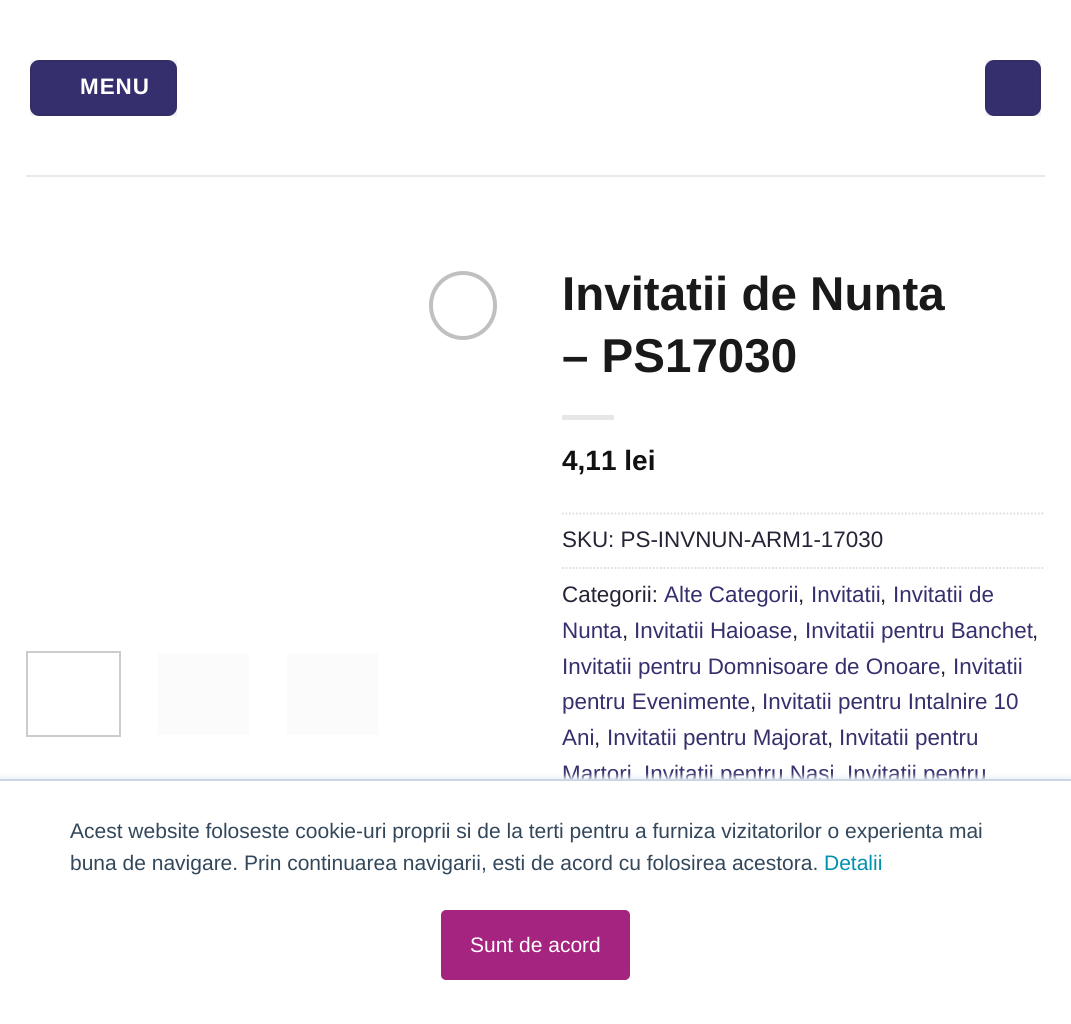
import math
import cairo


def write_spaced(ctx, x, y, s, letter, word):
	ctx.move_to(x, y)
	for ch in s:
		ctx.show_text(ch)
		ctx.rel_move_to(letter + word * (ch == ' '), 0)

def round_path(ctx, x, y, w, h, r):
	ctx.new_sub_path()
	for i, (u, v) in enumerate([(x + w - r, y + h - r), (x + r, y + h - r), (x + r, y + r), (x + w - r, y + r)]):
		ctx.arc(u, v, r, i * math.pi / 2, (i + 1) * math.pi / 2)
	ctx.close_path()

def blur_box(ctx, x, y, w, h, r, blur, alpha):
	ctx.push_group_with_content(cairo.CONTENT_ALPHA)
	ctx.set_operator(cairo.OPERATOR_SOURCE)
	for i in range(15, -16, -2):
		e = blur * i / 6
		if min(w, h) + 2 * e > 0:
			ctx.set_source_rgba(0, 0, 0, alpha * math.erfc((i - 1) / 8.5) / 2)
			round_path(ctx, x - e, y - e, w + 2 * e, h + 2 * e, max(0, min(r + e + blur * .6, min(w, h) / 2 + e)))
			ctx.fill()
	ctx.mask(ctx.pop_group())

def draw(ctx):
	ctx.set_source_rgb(1, 1, 1)
	ctx.paint()
	ctx.set_source_rgb(0.208, 0.188, 0.427)
	round_path(ctx, 30, 60, 147, 56, 9)
	ctx.fill()
	ctx.rectangle(31, 61, 145, 54)
	ctx.set_source_rgba(0, 0, 0, 0.05)
	ctx.stroke()
	ctx.select_font_face('Liberation Sans', cairo.FONT_SLANT_NORMAL, cairo.FONT_WEIGHT_BOLD)
	ctx.set_font_size(22.4)
	ctx.set_source_rgb(1, 1, 1)
	write_spaced(ctx, 80, 94, 'MENU', 1, 0)
	ctx.set_source_rgb(0.208, 0.188, 0.427)
	round_path(ctx, 985, 60, 56, 56, 9)
	ctx.fill()
	ctx.rectangle(986, 61, 54, 54)
	ctx.set_source_rgba(0, 0, 0, 0.05)
	ctx.stroke()
	ctx.set_source_rgb(0.914, 0.914, 0.922)
	ctx.rectangle(26, 175, 1019, 2)
	ctx.fill()
	round_path(ctx, 431, 273, 64, 65, 32)
	ctx.set_source_rgb(0.753, 0.753, 0.753)
	ctx.set_line_width(4)
	ctx.stroke()
	ctx.rectangle(27, 652, 93, 84)
	ctx.set_source_rgb(0.8, 0.8, 0.8)
	ctx.set_line_width(2)
	ctx.stroke()
	ctx.set_source_rgb(0.984, 0.984, 0.984)
	ctx.rectangle(158, 653, 91, 82)
	ctx.fill()
	ctx.rectangle(287, 653, 91, 82)
	ctx.fill()
	ctx.set_font_size(47.5)
	ctx.set_source_rgb(0.098, 0.098, 0.098)
	ctx.move_to(562, 310)
	ctx.show_text('Invitatii de Nunta')
	ctx.move_to(562, 372)
	ctx.show_text('– PS17030')
	ctx.set_source_rgb(0.902, 0.902, 0.902)
	ctx.rectangle(562, 415, 52, 5)
	ctx.fill()
	ctx.set_font_size(28)
	ctx.set_source_rgb(0.067, 0.067, 0.067)
	ctx.move_to(562, 470)
	ctx.show_text('4,11 lei')
	ctx.new_path()
	ctx.move_to(562, 513.5)
	ctx.line_to(1045, 513.5)
	ctx.set_source_rgb(0.867, 0.867, 0.867)
	ctx.set_line_width(1.8)
	ctx.set_dash([1.75, 1.75])
	ctx.stroke()
	ctx.select_font_face('Liberation Sans')
	ctx.set_font_size(22.4)
	ctx.set_source_rgb(0.145, 0.137, 0.208)
	ctx.move_to(562, 547)
	ctx.show_text('SKU: PS-INVNUN-ARM1-17030')
	ctx.new_path()
	ctx.move_to(562, 568)
	ctx.line_to(1045, 568)
	ctx.set_source_rgb(0.867, 0.867, 0.867)
	ctx.stroke()
	ctx.set_source_rgb(0.145, 0.137, 0.208)
	ctx.move_to(562, 602)
	ctx.show_text('Categorii:')
	ctx.set_source_rgb(0.208, 0.188, 0.427)
	ctx.move_to(664, 602)
	ctx.show_text('Alte Categorii')
	ctx.set_source_rgb(0.145, 0.137, 0.208)
	ctx.move_to(798, 602)
	ctx.show_text(',')
	ctx.set_source_rgb(0.208, 0.188, 0.427)
	ctx.move_to(811, 602)
	ctx.show_text('Invitatii')
	ctx.set_source_rgb(0.145, 0.137, 0.208)
	ctx.move_to(880, 602)
	ctx.show_text(',')
	ctx.set_source_rgb(0.208, 0.188, 0.427)
	ctx.move_to(893, 602)
	ctx.show_text('Invitatii de')
	ctx.move_to(562, 638)
	ctx.show_text('Nunta')
	ctx.set_source_rgb(0.145, 0.137, 0.208)
	ctx.move_to(622, 638)
	ctx.show_text(',')
	ctx.set_source_rgb(0.208, 0.188, 0.427)
	ctx.move_to(634, 638)
	ctx.show_text('Invitatii Haioase')
	ctx.set_source_rgb(0.145, 0.137, 0.208)
	ctx.move_to(792, 638)
	ctx.show_text(',')
	ctx.set_source_rgb(0.208, 0.188, 0.427)
	ctx.move_to(805, 638)
	ctx.show_text('Invitatii pentru Banchet')
	ctx.set_source_rgb(0.145, 0.137, 0.208)
	ctx.move_to(1032, 638)
	ctx.show_text(',')
	ctx.set_source_rgb(0.208, 0.188, 0.427)
	ctx.move_to(562, 674)
	ctx.show_text('Invitatii pentru Domnisoare de Onoare')
	ctx.set_source_rgb(0.145, 0.137, 0.208)
	ctx.move_to(940, 674)
	ctx.show_text(',')
	ctx.set_source_rgb(0.208, 0.188, 0.427)
	ctx.move_to(953, 674)
	ctx.show_text('Invitatii')
	ctx.move_to(562, 709)
	ctx.show_text('pentru Evenimente')
	ctx.set_source_rgb(0.145, 0.137, 0.208)
	ctx.move_to(750, 709)
	ctx.show_text(',')
	ctx.set_source_rgb(0.208, 0.188, 0.427)
	ctx.move_to(762, 709)
	ctx.show_text('Invitatii pentru Intalnire 10')
	ctx.move_to(562, 745)
	ctx.show_text('Ani')
	ctx.set_source_rgb(0.145, 0.137, 0.208)
	ctx.move_to(594, 745)
	ctx.show_text(',')
	ctx.set_source_rgb(0.208, 0.188, 0.427)
	ctx.move_to(607, 745)
	ctx.show_text('Invitatii pentru Majorat')
	ctx.set_source_rgb(0.145, 0.137, 0.208)
	ctx.move_to(827, 745)
	ctx.show_text(',')
	ctx.set_source_rgb(0.208, 0.188, 0.427)
	for x, y, s in [
		(839, 745, 'Invitatii pentru'),
		(562, 781, 'Martori'),
		(644, 781, 'Invitatii pentru Nasi'),
		(847, 781, 'Invitatii pentru'),
	]:
		ctx.move_to(x, y)
		ctx.show_text(s)
	ctx.set_source_rgb(0.918, 0.941, 0.965)
	blur_box(ctx, 0, 777, 1071, 247, 0, 2.5, 1)
	ctx.set_source_rgb(1, 1, 1)
	ctx.rectangle(0, 781, 1071, 243)
	ctx.fill()
	ctx.set_source_rgb(0.796, 0.839, 0.886)
	ctx.rectangle(0, 779, 1071, 2)
	ctx.fill()
	ctx.set_font_size(21)
	ctx.set_source_rgb(0.2, 0.278, 0.357)
	ctx.move_to(70, 838)
	ctx.show_text('Acest website foloseste cookie-uri proprii si de la terti pentru a furniza vizitatorilor o experienta mai')
	ctx.move_to(70, 870)
	ctx.show_text('buna de navigare. Prin continuarea navigarii, esti de acord cu folosirea acestora.')
	ctx.set_source_rgb(0, 0.569, 0.682)
	ctx.move_to(824, 870)
	ctx.show_text('Detalii')
	ctx.set_source_rgb(0.647, 0.141, 0.502)
	round_path(ctx, 442, 911, 187, 68, 4)
	ctx.fill_preserve()
	ctx.set_line_width(2)
	ctx.set_dash([])
	ctx.stroke()
	ctx.set_source_rgb(1, 1, 1)
	ctx.move_to(470, 952)
	ctx.show_text('Sunt de acord')


surface = cairo.ImageSurface(cairo.FORMAT_RGB24, 1071, 1024)
ctx = cairo.Context(surface)
options = cairo.FontOptions()
options.set_hint_metrics(cairo.HINT_METRICS_OFF)
options.set_hint_style(cairo.HINT_STYLE_NONE)
ctx.set_font_options(options)
ctx.set_miter_limit(4)
draw(ctx)
surface.write_to_png('image.png')
